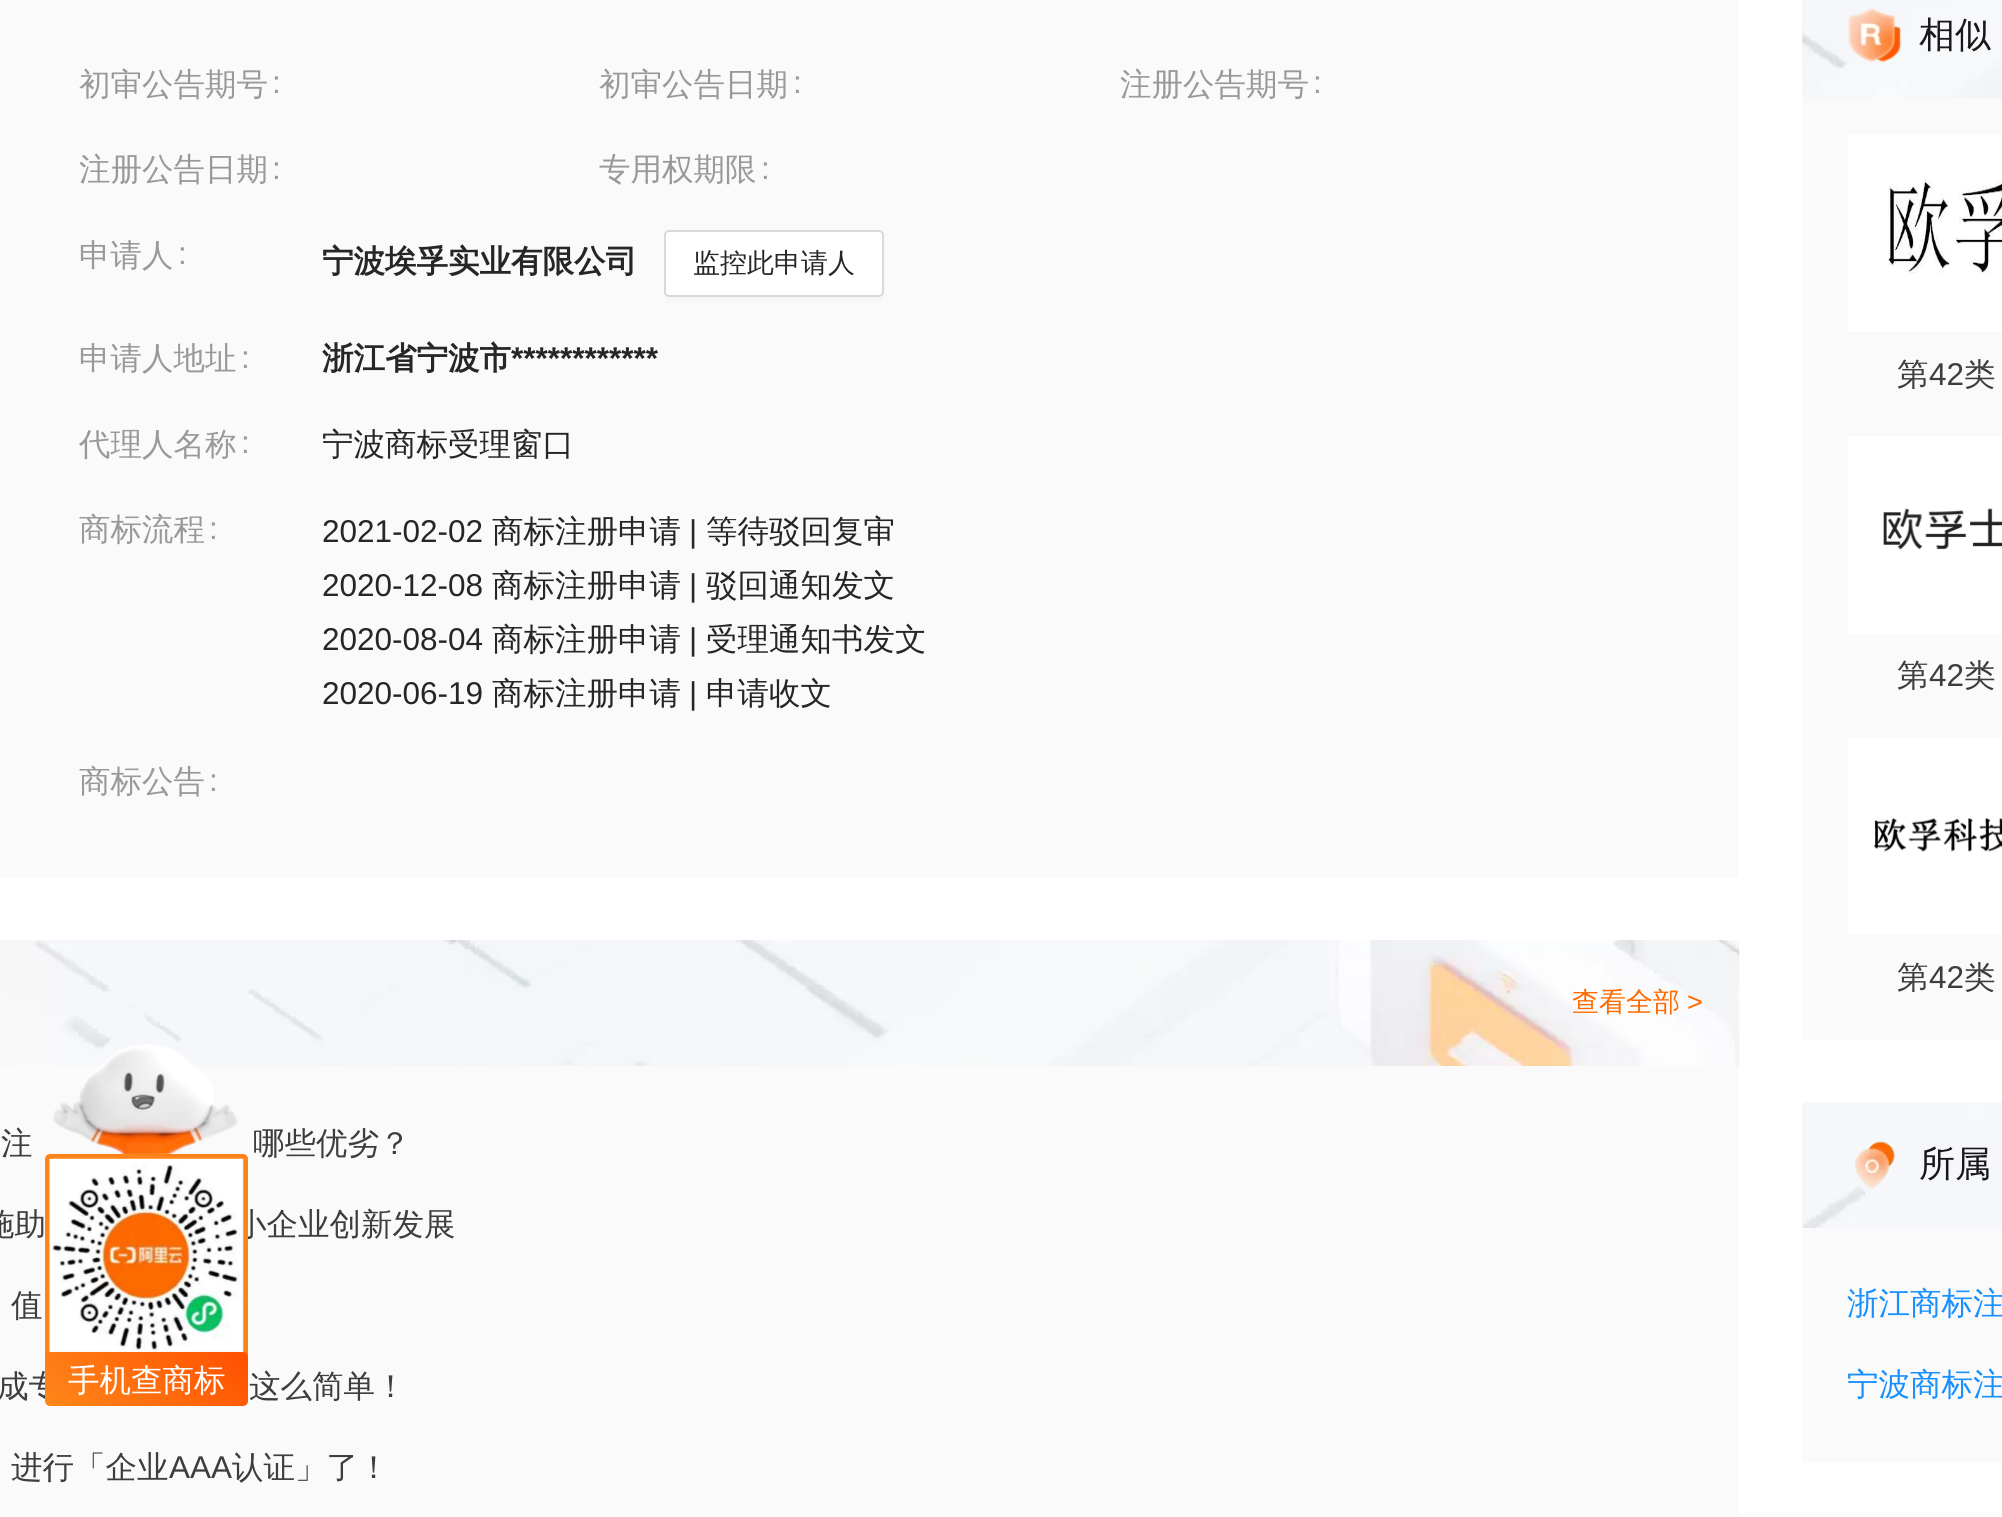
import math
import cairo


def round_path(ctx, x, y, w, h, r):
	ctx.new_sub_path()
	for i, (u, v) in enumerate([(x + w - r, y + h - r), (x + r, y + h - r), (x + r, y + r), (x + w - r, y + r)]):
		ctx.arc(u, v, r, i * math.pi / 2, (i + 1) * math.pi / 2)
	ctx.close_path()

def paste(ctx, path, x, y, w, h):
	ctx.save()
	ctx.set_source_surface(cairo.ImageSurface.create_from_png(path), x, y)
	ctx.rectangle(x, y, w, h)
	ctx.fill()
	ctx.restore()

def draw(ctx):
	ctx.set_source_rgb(1, 1, 1)
	ctx.paint()
	ctx.set_source_rgb(0.98, 0.98, 0.98)
	ctx.rectangle(0, 0, 1739, 878)
	ctx.fill()
	ctx.select_font_face('WenQuanYi Zen Hei Medium')
	ctx.set_font_size(31.5)
	ctx.set_source_rgb(0.6, 0.6, 0.6)
	ctx.move_to(79, 95)
	ctx.show_text('初审公告期号')
	ctx.select_font_face('Liberation Sans')
	ctx.move_to(272, 93)
	ctx.show_text(':')
	ctx.select_font_face('WenQuanYi Zen Hei Medium')
	ctx.move_to(599, 95)
	ctx.show_text('初审公告日期')
	ctx.select_font_face('Liberation Sans')
	ctx.move_to(793, 93)
	ctx.show_text(':')
	ctx.select_font_face('WenQuanYi Zen Hei Medium')
	ctx.move_to(1120, 95)
	ctx.show_text('注册公告期号')
	ctx.select_font_face('Liberation Sans')
	ctx.move_to(1313, 93)
	ctx.show_text(':')
	ctx.select_font_face('WenQuanYi Zen Hei Medium')
	ctx.move_to(79, 180)
	ctx.show_text('注册公告日期')
	ctx.select_font_face('Liberation Sans')
	ctx.move_to(272, 179)
	ctx.show_text(':')
	ctx.select_font_face('WenQuanYi Zen Hei Medium')
	ctx.move_to(599, 180)
	ctx.show_text('专用权期限')
	ctx.select_font_face('Liberation Sans')
	ctx.move_to(761, 179)
	ctx.show_text(':')
	ctx.select_font_face('WenQuanYi Zen Hei Medium')
	ctx.move_to(79, 266)
	ctx.show_text('申请人')
	ctx.select_font_face('Liberation Sans')
	ctx.move_to(178, 264)
	ctx.show_text(':')
	ctx.select_font_face('WenQuanYi Zen Hei', cairo.FONT_SLANT_NORMAL, cairo.FONT_WEIGHT_BOLD)
	ctx.set_source_rgb(0.149, 0.149, 0.149)
	ctx.move_to(322, 272)
	ctx.show_text('宁波埃孚实业有限公司')
	ctx.set_source_rgb(0.965, 0.965, 0.965)
	ctx.new_path()
	ctx.move_to(664, 294)
	ctx.line_to(664, 297)
	ctx.curve_to(664, 300, 666, 302, 669, 302)
	ctx.line_to(879, 302)
	ctx.curve_to(882, 302, 884, 300, 884, 297)
	ctx.line_to(884, 294)
	ctx.curve_to(883, 296, 882, 297, 880, 297)
	ctx.line_to(668, 297)
	ctx.curve_to(666, 297, 665, 296, 664, 294)
	ctx.close_path()
	ctx.fill()
	ctx.set_source_rgb(1, 1, 1)
	round_path(ctx, 665, 231, 218, 65, 4)
	ctx.fill_preserve()
	ctx.set_source_rgb(0.851, 0.851, 0.851)
	ctx.stroke()
	ctx.select_font_face('WenQuanYi Zen Hei Medium')
	ctx.set_font_size(27)
	ctx.set_source_rgb(0.149, 0.149, 0.149)
	ctx.move_to(693, 272)
	ctx.show_text('监控此申请人')
	ctx.set_font_size(31.5)
	ctx.set_source_rgb(0.6, 0.6, 0.6)
	ctx.move_to(79, 369)
	ctx.show_text('申请人地址')
	ctx.select_font_face('Liberation Sans')
	ctx.move_to(241, 368)
	ctx.show_text(':')
	ctx.select_font_face('WenQuanYi Zen Hei', cairo.FONT_SLANT_NORMAL, cairo.FONT_WEIGHT_BOLD)
	ctx.set_source_rgb(0.149, 0.149, 0.149)
	ctx.move_to(322, 369)
	ctx.show_text('浙江省宁波市')
	ctx.select_font_face('Liberation Sans', cairo.FONT_SLANT_NORMAL, cairo.FONT_WEIGHT_BOLD)
	ctx.move_to(511, 369)
	ctx.show_text('************')
	ctx.select_font_face('WenQuanYi Zen Hei Medium')
	ctx.set_source_rgb(0.6, 0.6, 0.6)
	ctx.move_to(79, 455)
	ctx.show_text('代理人名称')
	ctx.select_font_face('Liberation Sans')
	ctx.move_to(241, 453)
	ctx.show_text(':')
	ctx.select_font_face('WenQuanYi Zen Hei Medium')
	ctx.set_source_rgb(0.149, 0.149, 0.149)
	ctx.move_to(322, 455)
	ctx.show_text('宁波商标受理窗口')
	ctx.set_source_rgb(0.6, 0.6, 0.6)
	ctx.move_to(79, 540)
	ctx.show_text('商标流程')
	ctx.select_font_face('Liberation Sans')
	ctx.move_to(209, 539)
	ctx.show_text(':')
	ctx.set_source_rgb(0.149, 0.149, 0.149)
	ctx.move_to(322, 542)
	ctx.show_text('2021-02-02')
	ctx.select_font_face('WenQuanYi Zen Hei Medium')
	ctx.move_to(492, 542)
	ctx.show_text('商标注册申请')
	ctx.select_font_face('Liberation Sans')
	ctx.move_to(689, 542)
	ctx.show_text('|')
	ctx.select_font_face('WenQuanYi Zen Hei Medium')
	ctx.move_to(706, 542)
	ctx.show_text('等待驳回复审')
	ctx.select_font_face('Liberation Sans')
	ctx.move_to(322, 596)
	ctx.show_text('2020-12-08')
	ctx.select_font_face('WenQuanYi Zen Hei Medium')
	ctx.move_to(492, 596)
	ctx.show_text('商标注册申请')
	ctx.select_font_face('Liberation Sans')
	ctx.move_to(689, 596)
	ctx.show_text('|')
	ctx.select_font_face('WenQuanYi Zen Hei Medium')
	ctx.move_to(706, 596)
	ctx.show_text('驳回通知发文')
	ctx.select_font_face('Liberation Sans')
	ctx.move_to(322, 650)
	ctx.show_text('2020-08-04')
	ctx.select_font_face('WenQuanYi Zen Hei Medium')
	ctx.move_to(492, 650)
	ctx.show_text('商标注册申请')
	ctx.select_font_face('Liberation Sans')
	ctx.move_to(689, 650)
	ctx.show_text('|')
	ctx.select_font_face('WenQuanYi Zen Hei Medium')
	ctx.move_to(706, 650)
	ctx.show_text('受理通知书发文')
	ctx.select_font_face('Liberation Sans')
	ctx.move_to(322, 704)
	ctx.show_text('2020-06-19')
	ctx.select_font_face('WenQuanYi Zen Hei Medium')
	ctx.move_to(492, 704)
	ctx.show_text('商标注册申请')
	ctx.select_font_face('Liberation Sans')
	ctx.move_to(689, 704)
	ctx.show_text('|')
	ctx.select_font_face('WenQuanYi Zen Hei Medium')
	ctx.move_to(706, 704)
	ctx.show_text('申请收文')
	ctx.set_source_rgb(0.6, 0.6, 0.6)
	ctx.move_to(79, 792)
	ctx.show_text('商标公告')
	ctx.select_font_face('Liberation Sans')
	ctx.move_to(209, 791)
	ctx.show_text(':')
	ctx.set_source_rgb(0.98, 0.98, 0.98)
	ctx.rectangle(0, 1066, 1739, 451)
	ctx.fill()
	paste(ctx, 'media/1.png', 0, 940, 1740, 126)
	ctx.select_font_face('WenQuanYi Zen Hei Medium')
	ctx.set_font_size(27)
	ctx.set_source_rgb(1, 0.416, 0)
	ctx.move_to(1572, 1011)
	ctx.show_text('查看全部')
	ctx.select_font_face('Liberation Sans')
	ctx.move_to(1687, 1011)
	ctx.show_text('>')
	ctx.select_font_face('WenQuanYi Zen Hei Medium')
	ctx.set_font_size(31.5)
	ctx.set_source_rgb(0.239, 0.239, 0.239)
	for x, y, s in [
		(1, 1154, '注'),
		(253, 1154, '哪些优劣？'),
		(-17, 1235, '施助'),
		(235, 1235, '小企业创新发展'),
		(11, 1316, '值'),
		(-3, 1397, '成专'),
		(249, 1397, '这么简单！'),
		(11, 1478, '进行「企业'),
	]:
		ctx.move_to(x, y)
		ctx.show_text(s)
	ctx.select_font_face('Liberation Sans')
	ctx.move_to(169, 1478)
	ctx.show_text('AAA')
	ctx.select_font_face('WenQuanYi Zen Hei Medium')
	ctx.move_to(232, 1478)
	ctx.show_text('认证」了！')
	ctx.set_source_rgb(0.98, 0.98, 0.98)
	ctx.rectangle(1802, 0, 200, 1040)
	ctx.fill()
	paste(ctx, 'media/2.png', 1802, 0, 200, 99)
	paste(ctx, 'media/3.png', 1848, 8, 54, 55)
	ctx.set_font_size(36)
	ctx.set_source_rgb(0.094, 0.094, 0.094)
	ctx.move_to(1919, 47)
	ctx.show_text('相似')
	paste(ctx, 'media/4.png', 1848, 135, 154, 197)
	ctx.set_font_size(31.5)
	ctx.set_source_rgb(0.239, 0.239, 0.239)
	ctx.move_to(1897, 385)
	ctx.show_text('第')
	ctx.select_font_face('Liberation Sans')
	ctx.move_to(1929, 385)
	ctx.show_text('42')
	ctx.select_font_face('WenQuanYi Zen Hei Medium')
	ctx.move_to(1964, 385)
	ctx.show_text('类')
	paste(ctx, 'media/5.png', 1848, 436, 154, 198)
	ctx.move_to(1897, 686)
	ctx.show_text('第')
	ctx.select_font_face('Liberation Sans')
	ctx.move_to(1929, 686)
	ctx.show_text('42')
	ctx.select_font_face('WenQuanYi Zen Hei Medium')
	ctx.move_to(1964, 686)
	ctx.show_text('类')
	paste(ctx, 'media/6.png', 1848, 738, 154, 197)
	ctx.move_to(1897, 988)
	ctx.show_text('第')
	ctx.select_font_face('Liberation Sans')
	ctx.move_to(1929, 988)
	ctx.show_text('42')
	ctx.select_font_face('WenQuanYi Zen Hei Medium')
	ctx.move_to(1964, 988)
	ctx.show_text('类')
	ctx.set_source_rgb(0.98, 0.98, 0.98)
	ctx.rectangle(1802, 1103, 200, 360)
	ctx.fill()
	paste(ctx, 'media/7.png', 1802, 1102, 200, 126)
	paste(ctx, 'media/8.png', 1855, 1141, 40, 49)
	ctx.set_font_size(36)
	ctx.set_source_rgb(0.094, 0.094, 0.094)
	ctx.move_to(1919, 1176)
	ctx.show_text('所属')
	ctx.set_font_size(31.5)
	ctx.set_source_rgb(0.094, 0.565, 1)
	ctx.move_to(1847, 1314)
	ctx.show_text('浙江商标注')
	ctx.move_to(1847, 1395)
	ctx.show_text('宁波商标注')
	paste(ctx, 'media/9.png', 53, 1044, 185, 110)
	ctx.set_source_rgb(0.847, 0.847, 0.847)
	ctx.new_path()
	ctx.move_to(50, 1156.5)
	ctx.line_to(243, 1156.5)
	ctx.curve_to(244.5, 1156.5, 245.5, 1157.5, 245.5, 1159)
	ctx.line_to(245.5, 1354.5)
	ctx.line_to(47.5, 1354.5)
	ctx.line_to(47.5, 1159)
	ctx.curve_to(47.5, 1157.5, 48.5, 1156.5, 50, 1156.5)
	ctx.close_path()
	ctx.fill_preserve()
	ctx.set_source_rgb(1, 0.514, 0.098)
	ctx.set_line_width(5)
	ctx.stroke()
	paste(ctx, 'media/10.png', 49, 1158, 195, 195)
	gradient = cairo.LinearGradient(82, 1443, 210, 1315)
	gradient.add_color_stop_rgba(0, 1, 0.529, 0.102, 1)
	gradient.add_color_stop_rgba(1, 1, 0.314, 0, 1)
	ctx.set_source(gradient)
	round_path(ctx, 45, 1352, 203, 54, 5)
	ctx.fill()
	ctx.set_source_rgb(1, 1, 1)
	ctx.move_to(68, 1391)
	ctx.show_text('手机查商标')


surface = cairo.ImageSurface(cairo.FORMAT_RGB24, 2002, 1517)
ctx = cairo.Context(surface)
options = cairo.FontOptions()
options.set_hint_metrics(cairo.HINT_METRICS_OFF)
options.set_hint_style(cairo.HINT_STYLE_NONE)
ctx.set_font_options(options)
ctx.set_miter_limit(4)
draw(ctx)
surface.write_to_png('image.png')
